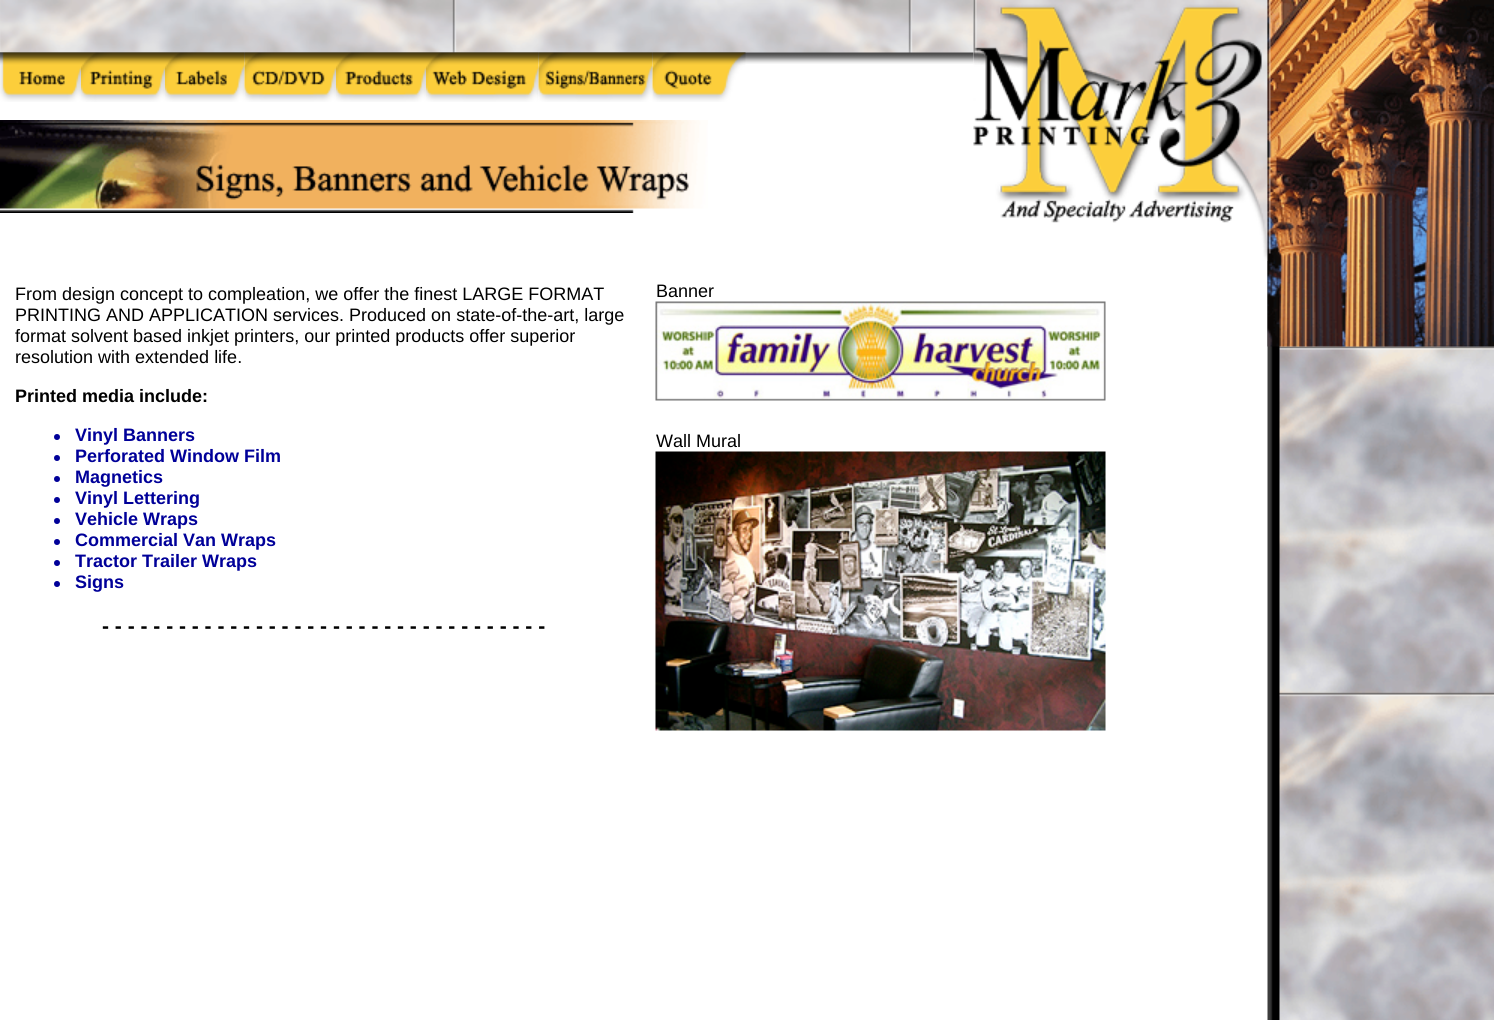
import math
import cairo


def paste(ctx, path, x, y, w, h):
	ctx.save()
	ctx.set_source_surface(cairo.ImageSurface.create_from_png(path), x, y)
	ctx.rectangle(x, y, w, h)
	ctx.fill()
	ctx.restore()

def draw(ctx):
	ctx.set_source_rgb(1, 1, 1)
	ctx.paint()
	paste(ctx, 'media/1.png', 0, 0, 974, 64)
	paste(ctx, 'media/2.png', 0, 52, 81, 50)
	paste(ctx, 'media/3.png', 81, 52, 84, 50)
	paste(ctx, 'media/4.png', 165, 52, 80, 50)
	paste(ctx, 'media/5.png', 244, 52, 92, 50)
	paste(ctx, 'media/6.png', 336, 52, 90, 50)
	paste(ctx, 'media/7.png', 426, 52, 113, 50)
	paste(ctx, 'media/8.png', 538, 52, 115, 50)
	paste(ctx, 'media/9.png', 652, 52, 94, 50)
	paste(ctx, 'media/11.png', 1267, 0, 227, 1020)
	paste(ctx, 'media/10.png', 973, 0, 295, 261)
	paste(ctx, 'media/12.png', 1267, 0, 227, 347)
	paste(ctx, 'media/13.png', 0, 120, 708, 93)
	ctx.select_font_face('Liberation Sans')
	ctx.set_font_size(18)
	ctx.set_source_rgb(0, 0, 0)
	for x, y, s in [
		(15, 300, 'From design concept to compleation, we offer the finest LARGE FORMAT'),
		(15, 321, 'PRINTING AND APPLICATION services. Produced on state-of-the-art, large'),
		(15, 342, 'format solvent based inkjet printers, our printed products offer superior'),
		(15, 363, 'resolution with extended life.'),
	]:
		ctx.move_to(x, y)
		ctx.show_text(s)
	ctx.select_font_face('Liberation Sans', cairo.FONT_SLANT_NORMAL, cairo.FONT_WEIGHT_BOLD)
	ctx.move_to(15, 402)
	ctx.show_text('Printed media include:')
	ctx.set_source_rgb(0, 0, 0.6)
	ctx.new_path()
	ctx.arc(57, 437, 3, 0, 2 * math.pi)
	ctx.fill()
	ctx.move_to(75, 441)
	ctx.show_text('Vinyl Banners')
	ctx.new_path()
	ctx.arc(57, 458, 3, 0, 2 * math.pi)
	ctx.fill()
	ctx.move_to(75, 462)
	ctx.show_text('Perforated Window Film')
	ctx.new_path()
	ctx.arc(57, 479, 3, 0, 2 * math.pi)
	ctx.fill()
	ctx.move_to(75, 483)
	ctx.show_text('Magnetics')
	ctx.new_path()
	ctx.arc(57, 500, 3, 0, 2 * math.pi)
	ctx.fill()
	ctx.move_to(75, 504)
	ctx.show_text('Vinyl Lettering')
	ctx.new_path()
	ctx.arc(57, 521, 3, 0, 2 * math.pi)
	ctx.fill()
	ctx.move_to(75, 525)
	ctx.show_text('Vehicle Wraps')
	ctx.new_path()
	ctx.arc(57, 542, 3, 0, 2 * math.pi)
	ctx.fill()
	ctx.move_to(75, 546)
	ctx.show_text('Commercial Van Wraps')
	ctx.new_path()
	ctx.arc(57, 563, 3, 0, 2 * math.pi)
	ctx.fill()
	ctx.move_to(75, 567)
	ctx.show_text('Tractor Trailer Wraps')
	ctx.new_path()
	ctx.arc(57, 584, 3, 0, 2 * math.pi)
	ctx.fill()
	ctx.move_to(75, 588)
	ctx.show_text('Signs')
	ctx.set_font_size(21)
	ctx.set_source_rgb(0, 0, 0)
	ctx.move_to(102, 633)
	ctx.show_text('- - - - - - - - - - - - - - - - - - - - - - - - - - - - - - - - - - -')
	ctx.select_font_face('Liberation Sans')
	ctx.set_font_size(18)
	ctx.move_to(656, 297)
	ctx.show_text('Banner')
	paste(ctx, 'media/14.png', 655, 301, 451, 100)
	ctx.move_to(656, 447)
	ctx.show_text('Wall Mural')
	paste(ctx, 'media/15.png', 655, 451, 451, 280)


surface = cairo.ImageSurface(cairo.FORMAT_RGB24, 1494, 1020)
ctx = cairo.Context(surface)
options = cairo.FontOptions()
options.set_hint_metrics(cairo.HINT_METRICS_OFF)
options.set_hint_style(cairo.HINT_STYLE_NONE)
ctx.set_font_options(options)
ctx.set_miter_limit(4)
draw(ctx)
surface.write_to_png('image.png')
